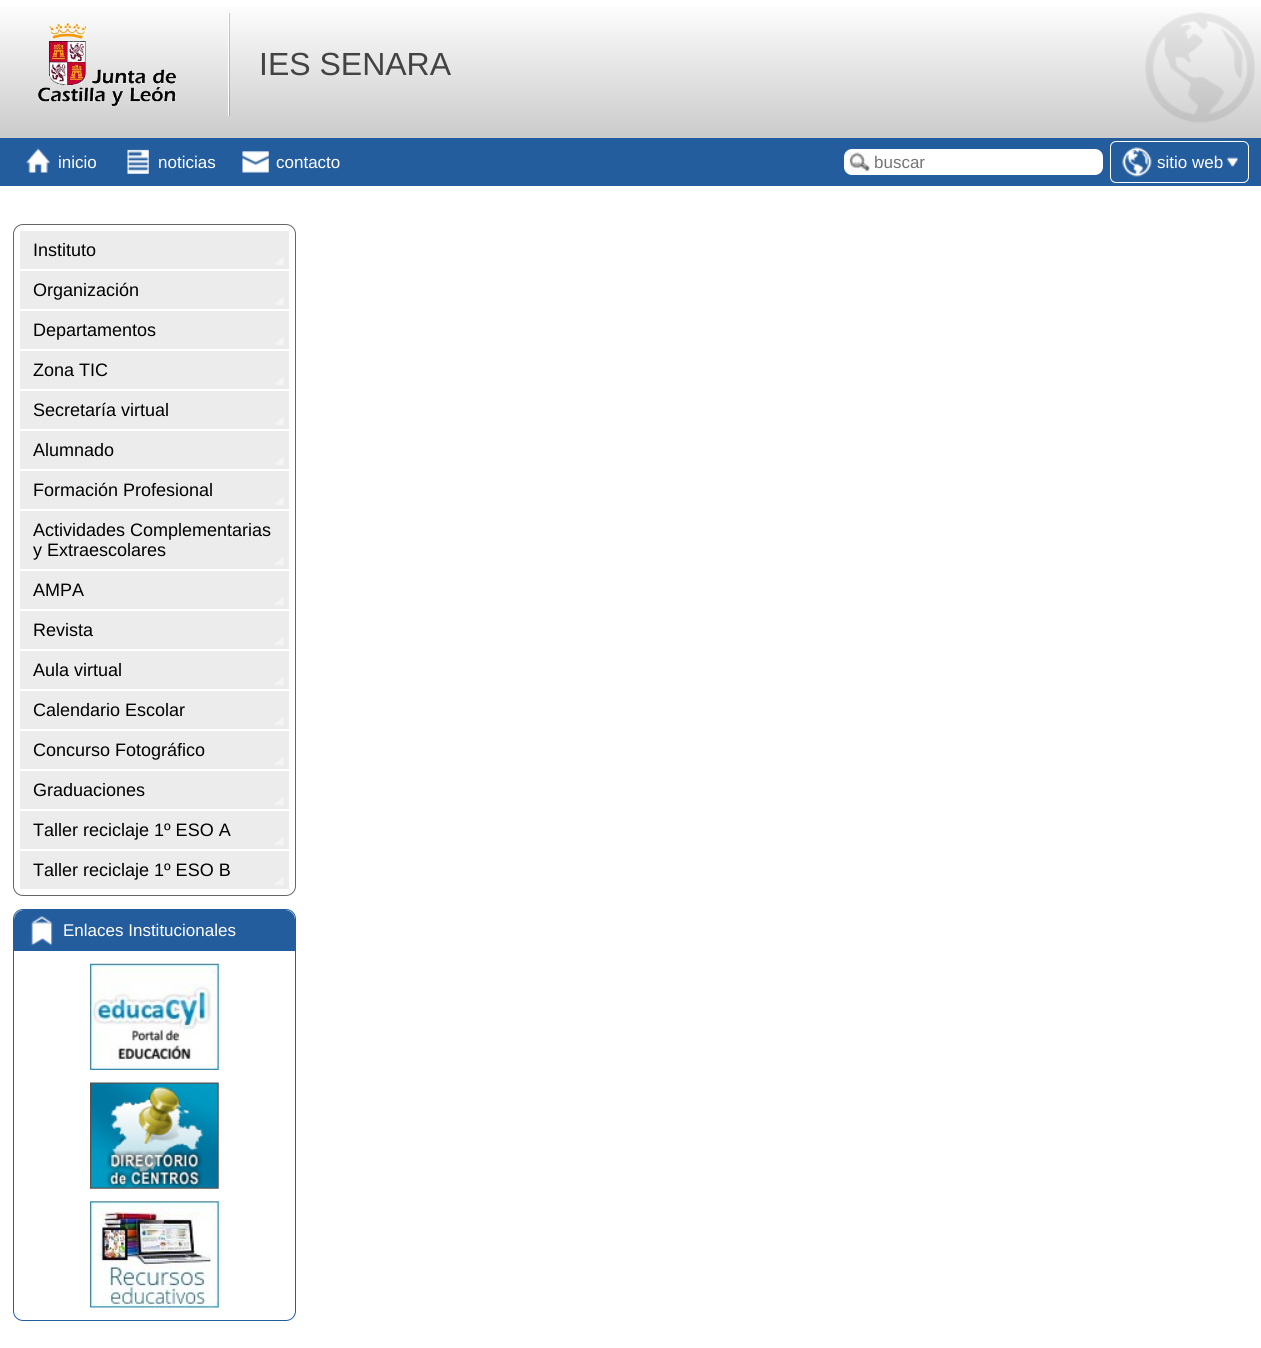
import math
import cairo


def round_path(ctx, x, y, w, h, r):
	ctx.new_sub_path()
	for i, (u, v) in enumerate([(x + w - r, y + h - r), (x + r, y + h - r), (x + r, y + r), (x + w - r, y + r)]):
		ctx.arc(u, v, r, i * math.pi / 2, (i + 1) * math.pi / 2)
	ctx.close_path()

def paste(ctx, path, x, y, w, h):
	ctx.save()
	ctx.set_source_surface(cairo.ImageSurface.create_from_png(path), x, y)
	ctx.rectangle(x, y, w, h)
	ctx.fill()
	ctx.restore()

def draw(ctx):
	ctx.set_source_rgb(1, 1, 1)
	ctx.paint()
	gradient = cairo.LinearGradient(631, 0, 631, 138)
	gradient.add_color_stop_rgba(0, 1, 1, 1, 1)
	gradient.add_color_stop_rgba(1, 0.796, 0.796, 0.796, 1)
	ctx.set_source(gradient)
	ctx.rectangle(0, 7, 1261, 131)
	ctx.fill()
	gradient = cairo.LinearGradient(631, 0, 631, 138)
	gradient.add_color_stop_rgba(0, 0.8, 0.8, 0.8, 1)
	gradient.add_color_stop_rgba(1, 0.635, 0.635, 0.635, 1)
	ctx.set_source(gradient)
	ctx.rectangle(229, 13, 1, 103)
	ctx.fill()
	paste(ctx, 'media/1.png', 1145, 12, 110, 111)
	ctx.set_source_rgb(1, 1, 1)
	ctx.rectangle(228, 13, 1, 103)
	ctx.fill()
	paste(ctx, 'media/2.png', 38, 23, 138, 83)
	ctx.select_font_face('Liberation Sans')
	ctx.set_font_size(32)
	ctx.set_source_rgb(0.263, 0.263, 0.263)
	ctx.move_to(259, 75)
	ctx.show_text('IES SENARA')
	ctx.set_source_rgb(0.141, 0.365, 0.62)
	ctx.rectangle(0, 138, 1261, 48)
	ctx.fill()
	paste(ctx, 'media/3.png', 26, 148, 25, 25)
	ctx.set_font_size(17)
	ctx.set_source_rgb(1, 1, 1)
	ctx.move_to(58, 168)
	ctx.show_text('inicio')
	paste(ctx, 'media/4.png', 127, 149, 22, 25)
	ctx.move_to(158, 168)
	ctx.show_text('noticias')
	paste(ctx, 'media/5.png', 242, 151, 27, 22)
	ctx.move_to(276, 168)
	ctx.show_text('contacto')
	round_path(ctx, 844, 149, 259, 26, 8)
	ctx.fill()
	paste(ctx, 'media/6.png', 849, 152, 21, 20)
	ctx.set_source_rgb(0.459, 0.459, 0.459)
	ctx.move_to(874, 168)
	ctx.show_text('buscar')
	round_path(ctx, 1110.5, 141.5, 138, 41, 5.5)
	ctx.set_source_rgb(1, 1, 1)
	ctx.set_line_width(1)
	ctx.stroke()
	paste(ctx, 'media/7.png', 1122, 147, 30, 30)
	ctx.move_to(1157, 168)
	ctx.show_text('sitio web')
	paste(ctx, 'media/8.png', 1227, 157, 11, 10)
	round_path(ctx, 13.5, 224.5, 282, 671, 9.5)
	ctx.set_source_rgb(0.4, 0.4, 0.4)
	ctx.stroke()
	ctx.set_source_rgb(0.922, 0.922, 0.922)
	ctx.rectangle(20, 231, 269, 38)
	ctx.fill()
	paste(ctx, 'media/9.png', 275, 257, 9, 8)
	ctx.set_font_size(18)
	ctx.set_source_rgb(0, 0, 0)
	ctx.move_to(33, 256)
	ctx.show_text('Instituto')
	ctx.set_source_rgb(0.922, 0.922, 0.922)
	ctx.rectangle(20, 271, 269, 38)
	ctx.fill()
	paste(ctx, 'media/9.png', 275, 297, 9, 8)
	ctx.set_source_rgb(0, 0, 0)
	ctx.move_to(33, 296)
	ctx.show_text('Organización')
	ctx.set_source_rgb(0.922, 0.922, 0.922)
	ctx.rectangle(20, 311, 269, 38)
	ctx.fill()
	paste(ctx, 'media/9.png', 275, 337, 9, 8)
	ctx.set_source_rgb(0, 0, 0)
	ctx.move_to(33, 336)
	ctx.show_text('Departamentos')
	ctx.set_source_rgb(0.922, 0.922, 0.922)
	ctx.rectangle(20, 351, 269, 38)
	ctx.fill()
	paste(ctx, 'media/9.png', 275, 377, 9, 8)
	ctx.set_source_rgb(0, 0, 0)
	ctx.move_to(33, 376)
	ctx.show_text('Zona TIC')
	ctx.set_source_rgb(0.922, 0.922, 0.922)
	ctx.rectangle(20, 391, 269, 38)
	ctx.fill()
	paste(ctx, 'media/9.png', 275, 417, 9, 8)
	ctx.set_source_rgb(0, 0, 0)
	ctx.move_to(33, 416)
	ctx.show_text('Secretaría virtual')
	ctx.set_source_rgb(0.922, 0.922, 0.922)
	ctx.rectangle(20, 431, 269, 38)
	ctx.fill()
	paste(ctx, 'media/9.png', 275, 457, 9, 8)
	ctx.set_source_rgb(0, 0, 0)
	ctx.move_to(33, 456)
	ctx.show_text('Alumnado')
	ctx.set_source_rgb(0.922, 0.922, 0.922)
	ctx.rectangle(20, 471, 269, 38)
	ctx.fill()
	paste(ctx, 'media/9.png', 275, 497, 9, 8)
	ctx.set_source_rgb(0, 0, 0)
	ctx.move_to(33, 496)
	ctx.show_text('Formación Profesional')
	ctx.set_source_rgb(0.922, 0.922, 0.922)
	ctx.rectangle(20, 511, 269, 58)
	ctx.fill()
	paste(ctx, 'media/9.png', 275, 557, 9, 8)
	ctx.set_source_rgb(0, 0, 0)
	ctx.move_to(33, 536)
	ctx.show_text('Actividades Complementarias')
	ctx.move_to(33, 556)
	ctx.show_text('y Extraescolares')
	ctx.set_source_rgb(0.922, 0.922, 0.922)
	ctx.rectangle(20, 571, 269, 38)
	ctx.fill()
	paste(ctx, 'media/9.png', 275, 597, 9, 8)
	ctx.set_source_rgb(0, 0, 0)
	ctx.move_to(33, 596)
	ctx.show_text('AMPA')
	ctx.set_source_rgb(0.922, 0.922, 0.922)
	ctx.rectangle(20, 611, 269, 38)
	ctx.fill()
	paste(ctx, 'media/9.png', 275, 637, 9, 8)
	ctx.set_source_rgb(0, 0, 0)
	ctx.move_to(33, 636)
	ctx.show_text('Revista')
	ctx.set_source_rgb(0.922, 0.922, 0.922)
	ctx.rectangle(20, 651, 269, 38)
	ctx.fill()
	paste(ctx, 'media/9.png', 275, 677, 9, 8)
	ctx.set_source_rgb(0, 0, 0)
	ctx.move_to(33, 676)
	ctx.show_text('Aula virtual')
	ctx.set_source_rgb(0.922, 0.922, 0.922)
	ctx.rectangle(20, 691, 269, 38)
	ctx.fill()
	paste(ctx, 'media/9.png', 275, 717, 9, 8)
	ctx.set_source_rgb(0, 0, 0)
	ctx.move_to(33, 716)
	ctx.show_text('Calendario Escolar')
	ctx.set_source_rgb(0.922, 0.922, 0.922)
	ctx.rectangle(20, 731, 269, 38)
	ctx.fill()
	paste(ctx, 'media/9.png', 275, 757, 9, 8)
	ctx.set_source_rgb(0, 0, 0)
	ctx.move_to(33, 756)
	ctx.show_text('Concurso Fotográfico')
	ctx.set_source_rgb(0.922, 0.922, 0.922)
	ctx.rectangle(20, 771, 269, 38)
	ctx.fill()
	paste(ctx, 'media/9.png', 275, 797, 9, 8)
	ctx.set_source_rgb(0, 0, 0)
	ctx.move_to(33, 796)
	ctx.show_text('Graduaciones')
	ctx.set_source_rgb(0.922, 0.922, 0.922)
	ctx.rectangle(20, 811, 269, 38)
	ctx.fill()
	paste(ctx, 'media/9.png', 275, 837, 9, 8)
	ctx.set_source_rgb(0, 0, 0)
	ctx.move_to(33, 836)
	ctx.show_text('Taller reciclaje 1º ESO A')
	ctx.set_source_rgb(0.922, 0.922, 0.922)
	ctx.rectangle(20, 851, 269, 38)
	ctx.fill()
	paste(ctx, 'media/9.png', 275, 877, 9, 8)
	ctx.set_source_rgb(0, 0, 0)
	ctx.move_to(33, 876)
	ctx.show_text('Taller reciclaje 1º ESO B')
	round_path(ctx, 13.5, 909.5, 282, 411, 9.5)
	ctx.set_source_rgb(0.141, 0.365, 0.62)
	ctx.stroke()
	ctx.save()
	round_path(ctx, 14, 910, 281, 410, 9)
	ctx.clip()
	ctx.new_path()
	ctx.move_to(24, 910)
	ctx.line_to(285, 910)
	ctx.curve_to(290.5, 910, 295, 914.5, 295, 920)
	ctx.line_to(295, 951)
	ctx.line_to(14, 951)
	ctx.line_to(14, 920)
	ctx.curve_to(14, 914.5, 18.5, 910, 24, 910)
	ctx.close_path()
	ctx.fill()
	ctx.restore()
	paste(ctx, 'media/10.png', 31, 916, 22, 30)
	ctx.set_font_size(17)
	ctx.set_source_rgb(1, 1, 1)
	ctx.move_to(63, 936)
	ctx.show_text('Enlaces Institucionales')
	paste(ctx, 'media/11.png', 90, 963, 129, 107)
	paste(ctx, 'media/12.png', 90, 1082, 129, 107)
	paste(ctx, 'media/13.png', 90, 1201, 129, 107)


surface = cairo.ImageSurface(cairo.FORMAT_RGB24, 1261, 1348)
ctx = cairo.Context(surface)
options = cairo.FontOptions()
options.set_hint_metrics(cairo.HINT_METRICS_OFF)
options.set_hint_style(cairo.HINT_STYLE_NONE)
ctx.set_font_options(options)
ctx.set_miter_limit(4)
draw(ctx)
surface.write_to_png('image.png')
